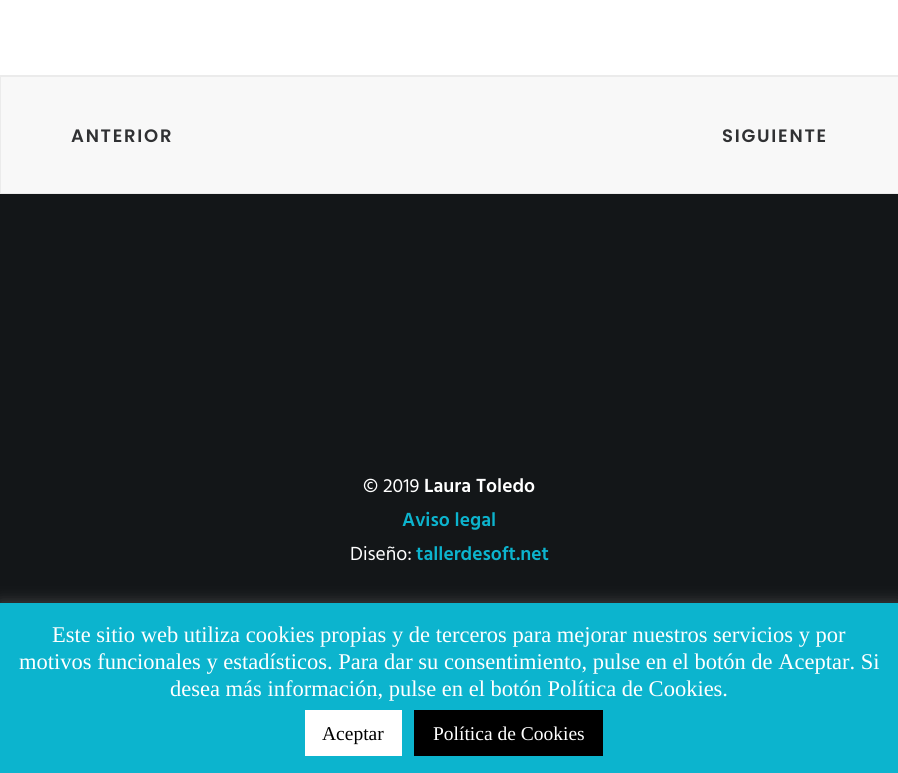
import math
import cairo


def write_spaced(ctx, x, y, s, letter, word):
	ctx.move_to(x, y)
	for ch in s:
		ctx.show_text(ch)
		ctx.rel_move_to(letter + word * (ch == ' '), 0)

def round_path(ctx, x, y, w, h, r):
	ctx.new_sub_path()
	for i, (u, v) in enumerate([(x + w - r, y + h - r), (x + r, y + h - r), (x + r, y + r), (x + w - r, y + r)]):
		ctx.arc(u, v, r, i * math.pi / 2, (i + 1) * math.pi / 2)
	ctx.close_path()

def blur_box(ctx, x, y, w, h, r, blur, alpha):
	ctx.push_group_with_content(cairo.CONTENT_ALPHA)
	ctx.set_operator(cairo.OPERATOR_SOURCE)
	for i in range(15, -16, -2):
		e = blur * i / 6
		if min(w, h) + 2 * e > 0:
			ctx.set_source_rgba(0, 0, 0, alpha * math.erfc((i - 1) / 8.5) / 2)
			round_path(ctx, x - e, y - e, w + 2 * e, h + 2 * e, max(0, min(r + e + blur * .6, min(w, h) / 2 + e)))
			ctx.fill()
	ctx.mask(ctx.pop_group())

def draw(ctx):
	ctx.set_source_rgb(1, 1, 1)
	ctx.paint()
	ctx.set_source_rgb(0.969, 0.969, 0.969)
	ctx.rectangle(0, 76, 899, 118)
	ctx.fill_preserve()
	ctx.set_source_rgb(0.918, 0.918, 0.918)
	ctx.stroke()
	ctx.select_font_face('Poppins SemiBold')
	ctx.set_font_size(18)
	ctx.set_source_rgb(0.188, 0.192, 0.2)
	write_spaced(ctx, 71, 142, 'ANTERIOR', 1.75, 0)
	write_spaced(ctx, 722, 142, 'SIGUIENTE', 1.75, 0)
	ctx.set_source_rgb(0.078, 0.086, 0.094)
	ctx.rectangle(0, 194, 898, 409)
	ctx.fill()
	ctx.select_font_face('Hind')
	ctx.set_font_size(19.5)
	ctx.set_source_rgb(1, 1, 1)
	ctx.move_to(363, 492)
	ctx.show_text('© 2019')
	ctx.select_font_face('Hind SemiBold')
	ctx.move_to(424, 492)
	ctx.show_text('Laura Toledo')
	ctx.set_source_rgb(0.047, 0.706, 0.808)
	ctx.move_to(402, 526)
	ctx.show_text('Aviso legal')
	ctx.select_font_face('Hind')
	ctx.set_source_rgb(1, 1, 1)
	ctx.move_to(350, 560)
	ctx.show_text('Diseño:')
	ctx.select_font_face('Hind SemiBold')
	ctx.set_source_rgb(0.047, 0.706, 0.808)
	ctx.move_to(416, 560)
	ctx.show_text('tallerdesoft.net')
	ctx.set_source_rgb(0.675, 0.671, 0.671)
	blur_box(ctx, 0, 602, 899, 171, 0, 7.5, 0.3)
	ctx.set_source_rgb(0.047, 0.706, 0.808)
	ctx.rectangle(0, 603, 898, 170)
	ctx.fill()
	ctx.select_font_face('Liberation Serif')
	ctx.set_font_size(22.5)
	ctx.set_source_rgb(1, 1, 1)
	for x, y, s in [
		(52, 642, 'Este sitio web utiliza cookies propias y de terceros para mejorar nuestros servicios y por'),
		(19, 669, 'motivos funcionales y estadísticos. Para dar su consentimiento, pulse en el botón de Aceptar. Si'),
		(170, 696, 'desea más información, pulse en el botón Política de Cookies.'),
	]:
		ctx.move_to(x, y)
		ctx.show_text(s)
	ctx.rectangle(305, 710, 97, 46)
	ctx.fill()
	ctx.set_font_size(19.5)
	ctx.set_source_rgb(0, 0, 0)
	ctx.move_to(322, 740)
	ctx.show_text('Aceptar')
	ctx.rectangle(414, 710, 189, 46)
	ctx.fill()
	ctx.set_source_rgb(1, 1, 1)
	ctx.move_to(433, 740)
	ctx.show_text('Política de Cookies')


surface = cairo.ImageSurface(cairo.FORMAT_RGB24, 898, 773)
ctx = cairo.Context(surface)
options = cairo.FontOptions()
options.set_hint_metrics(cairo.HINT_METRICS_OFF)
options.set_hint_style(cairo.HINT_STYLE_NONE)
ctx.set_font_options(options)
ctx.set_miter_limit(4)
draw(ctx)
surface.write_to_png('image.png')
